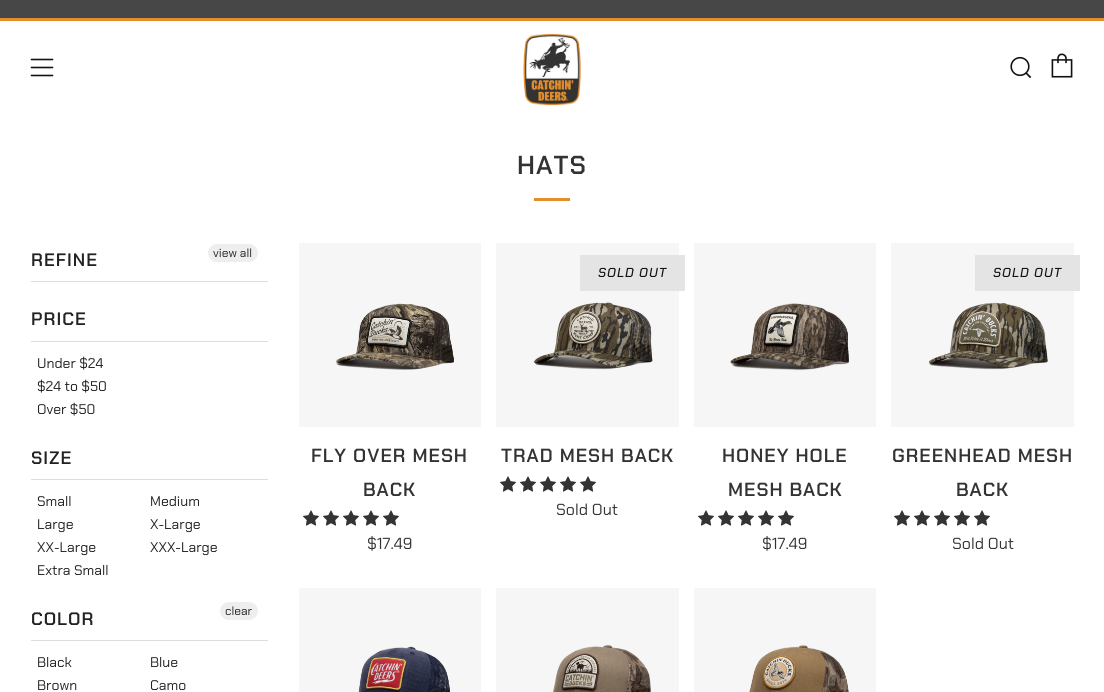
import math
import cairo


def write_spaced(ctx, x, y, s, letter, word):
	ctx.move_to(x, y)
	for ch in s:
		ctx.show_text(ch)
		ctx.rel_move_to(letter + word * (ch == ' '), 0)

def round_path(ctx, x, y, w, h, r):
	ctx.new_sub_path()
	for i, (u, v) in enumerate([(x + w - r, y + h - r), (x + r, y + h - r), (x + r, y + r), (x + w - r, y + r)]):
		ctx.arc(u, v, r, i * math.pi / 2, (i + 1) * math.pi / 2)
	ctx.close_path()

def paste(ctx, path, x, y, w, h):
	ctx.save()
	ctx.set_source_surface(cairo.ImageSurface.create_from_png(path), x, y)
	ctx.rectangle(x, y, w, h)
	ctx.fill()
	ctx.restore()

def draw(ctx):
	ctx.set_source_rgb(1, 1, 1)
	ctx.paint()
	ctx.set_source_rgb(0.278, 0.278, 0.278)
	ctx.rectangle(0, 0, 1104, 18)
	ctx.fill()
	ctx.set_source_rgb(0.89, 0.557, 0.173)
	ctx.rectangle(0, 18, 1104, 3)
	ctx.fill()
	paste(ctx, 'media/1.png', 30, 58, 24, 19)
	paste(ctx, 'media/2.png', 523, 33, 58, 73)
	paste(ctx, 'media/3.png', 1010, 56, 22, 23)
	paste(ctx, 'media/4.png', 1051, 53, 22, 25)
	ctx.select_font_face('Chakra Petch SemiBold')
	ctx.set_font_size(26)
	ctx.set_source_rgb(0.2, 0.2, 0.2)
	write_spaced(ctx, 517, 174, 'HATS', 1, 0)
	ctx.set_source_rgb(0.89, 0.557, 0.173)
	ctx.rectangle(534, 198, 36, 3)
	ctx.fill()
	ctx.set_source_rgb(0.867, 0.867, 0.867)
	ctx.rectangle(31, 281, 237, 1)
	ctx.fill()
	ctx.set_font_size(18)
	ctx.set_source_rgb(0.133, 0.133, 0.133)
	write_spaced(ctx, 31, 266, 'REFINE', 1, 0)
	ctx.set_source_rgb(0.933, 0.933, 0.933)
	round_path(ctx, 208, 244, 50, 18, 9)
	ctx.fill()
	ctx.select_font_face('Chakra Petch')
	ctx.set_font_size(12)
	ctx.set_source_rgb(0.133, 0.133, 0.133)
	ctx.move_to(213, 257)
	ctx.show_text('view all')
	ctx.set_source_rgb(0.867, 0.867, 0.867)
	ctx.rectangle(31, 341, 237, 1)
	ctx.fill()
	ctx.select_font_face('Chakra Petch SemiBold')
	ctx.set_font_size(18)
	ctx.set_source_rgb(0.133, 0.133, 0.133)
	write_spaced(ctx, 31, 325, 'PRICE', 1, 0)
	ctx.select_font_face('Chakra Petch')
	ctx.set_font_size(14)
	for x, y, s in [
		(37, 368, 'Under $24'),
		(37, 391, '$24 to $50'),
		(37, 414, 'Over $50'),
	]:
		ctx.move_to(x, y)
		ctx.show_text(s)
	ctx.set_source_rgb(0.867, 0.867, 0.867)
	ctx.rectangle(31, 479, 237, 1)
	ctx.fill()
	ctx.select_font_face('Chakra Petch SemiBold')
	ctx.set_font_size(18)
	ctx.set_source_rgb(0.133, 0.133, 0.133)
	write_spaced(ctx, 31, 464, 'SIZE', 1, 0)
	ctx.select_font_face('Chakra Petch')
	ctx.set_font_size(14)
	for x, y, s in [
		(37, 506, 'Small'),
		(150, 506, 'Medium'),
		(37, 529, 'Large'),
		(150, 529, 'X-Large'),
		(37, 552, 'XX-Large'),
		(150, 552, 'XXX-Large'),
		(37, 575, 'Extra Small'),
	]:
		ctx.move_to(x, y)
		ctx.show_text(s)
	ctx.set_source_rgb(0.933, 0.933, 0.933)
	round_path(ctx, 220, 602, 38, 18, 9)
	ctx.fill()
	ctx.set_font_size(12)
	ctx.set_source_rgb(0.133, 0.133, 0.133)
	ctx.move_to(225, 615)
	ctx.show_text('clear')
	ctx.set_source_rgb(0.867, 0.867, 0.867)
	ctx.rectangle(31, 640, 237, 1)
	ctx.fill()
	ctx.select_font_face('Chakra Petch SemiBold')
	ctx.set_font_size(18)
	ctx.set_source_rgb(0.133, 0.133, 0.133)
	write_spaced(ctx, 31, 625, 'COLOR', 1, 0)
	ctx.select_font_face('Chakra Petch')
	ctx.set_font_size(14)
	for x, y, s in [
		(37, 667, 'Black'),
		(150, 667, 'Blue'),
		(37, 690, 'Brown'),
		(150, 690, 'Camo'),
	]:
		ctx.move_to(x, y)
		ctx.show_text(s)
	ctx.set_source_rgb(0.961, 0.961, 0.961)
	ctx.rectangle(299, 243, 182, 184)
	ctx.fill()
	paste(ctx, 'media/5.png', 336, 303, 118, 67)
	ctx.select_font_face('Chakra Petch SemiBold')
	ctx.set_font_size(19)
	ctx.set_source_rgb(0.2, 0.2, 0.2)
	write_spaced(ctx, 311, 462, 'FLY OVER MESH', 1, 0)
	write_spaced(ctx, 363, 496, 'BACK', 1, 0)
	paste(ctx, 'media/6.png', 303, 510, 16, 16)
	paste(ctx, 'media/6.png', 323, 510, 16, 16)
	paste(ctx, 'media/6.png', 343, 510, 16, 16)
	paste(ctx, 'media/6.png', 363, 510, 16, 16)
	paste(ctx, 'media/6.png', 383, 510, 16, 16)
	ctx.select_font_face('Chakra Petch')
	ctx.set_font_size(16)
	ctx.move_to(367, 549)
	ctx.show_text('$17.49')
	ctx.set_source_rgb(0.961, 0.961, 0.961)
	ctx.rectangle(496, 243, 183, 184)
	ctx.fill()
	paste(ctx, 'media/7.png', 534, 302, 119, 68)
	ctx.set_source_rgb(0.894, 0.894, 0.894)
	ctx.rectangle(580, 255, 105, 36)
	ctx.fill()
	ctx.select_font_face('Chakra Petch Medium', cairo.FONT_SLANT_ITALIC)
	ctx.set_font_size(13)
	ctx.set_source_rgb(0.067, 0.067, 0.067)
	write_spaced(ctx, 598, 277, 'SOLD OUT', 1, 0)
	ctx.select_font_face('Chakra Petch SemiBold')
	ctx.set_font_size(19)
	ctx.set_source_rgb(0.2, 0.2, 0.2)
	write_spaced(ctx, 501, 462, 'TRAD MESH BACK', 1, 0)
	paste(ctx, 'media/6.png', 500, 476, 16, 16)
	paste(ctx, 'media/6.png', 520, 476, 16, 16)
	paste(ctx, 'media/6.png', 540, 476, 16, 16)
	paste(ctx, 'media/6.png', 560, 476, 16, 16)
	paste(ctx, 'media/6.png', 580, 476, 16, 16)
	ctx.select_font_face('Chakra Petch')
	ctx.set_font_size(16)
	ctx.move_to(556, 515)
	ctx.show_text('Sold Out')
	ctx.set_source_rgb(0.961, 0.961, 0.961)
	ctx.rectangle(694, 243, 182, 184)
	ctx.fill()
	paste(ctx, 'media/8.png', 730, 303, 119, 68)
	ctx.select_font_face('Chakra Petch SemiBold')
	ctx.set_font_size(19)
	ctx.set_source_rgb(0.2, 0.2, 0.2)
	write_spaced(ctx, 722, 462, 'HONEY HOLE', 1, 0)
	write_spaced(ctx, 728, 496, 'MESH BACK', 1, 0)
	paste(ctx, 'media/6.png', 698, 510, 16, 16)
	paste(ctx, 'media/6.png', 718, 510, 16, 16)
	paste(ctx, 'media/6.png', 738, 510, 16, 16)
	paste(ctx, 'media/6.png', 758, 510, 16, 16)
	paste(ctx, 'media/6.png', 778, 510, 16, 16)
	ctx.select_font_face('Chakra Petch')
	ctx.set_font_size(16)
	ctx.move_to(762, 549)
	ctx.show_text('$17.49')
	ctx.set_source_rgb(0.961, 0.961, 0.961)
	ctx.rectangle(891, 243, 183, 184)
	ctx.fill()
	paste(ctx, 'media/9.png', 929, 302, 119, 68)
	ctx.set_source_rgb(0.894, 0.894, 0.894)
	ctx.rectangle(975, 255, 105, 36)
	ctx.fill()
	ctx.select_font_face('Chakra Petch Medium', cairo.FONT_SLANT_ITALIC)
	ctx.set_font_size(13)
	ctx.set_source_rgb(0.067, 0.067, 0.067)
	write_spaced(ctx, 993, 277, 'SOLD OUT', 1, 0)
	ctx.select_font_face('Chakra Petch SemiBold')
	ctx.set_font_size(19)
	ctx.set_source_rgb(0.2, 0.2, 0.2)
	write_spaced(ctx, 892, 462, 'GREENHEAD MESH', 1, 0)
	write_spaced(ctx, 956, 496, 'BACK', 1, 0)
	paste(ctx, 'media/6.png', 894, 510, 16, 16)
	paste(ctx, 'media/6.png', 914, 510, 16, 16)
	paste(ctx, 'media/6.png', 934, 510, 16, 16)
	paste(ctx, 'media/6.png', 954, 510, 16, 16)
	paste(ctx, 'media/6.png', 974, 510, 16, 16)
	ctx.select_font_face('Chakra Petch')
	ctx.set_font_size(16)
	ctx.move_to(952, 549)
	ctx.show_text('Sold Out')
	ctx.set_source_rgb(0.961, 0.961, 0.961)
	ctx.rectangle(299, 588, 182, 104)
	ctx.fill()
	paste(ctx, 'media/10.png', 358, 646, 92, 46)
	ctx.rectangle(496, 588, 183, 104)
	ctx.fill()
	paste(ctx, 'media/11.png', 553, 645, 98, 47)
	ctx.rectangle(694, 588, 182, 104)
	ctx.fill()
	paste(ctx, 'media/12.png', 749, 645, 100, 47)


surface = cairo.ImageSurface(cairo.FORMAT_RGB24, 1104, 692)
ctx = cairo.Context(surface)
options = cairo.FontOptions()
options.set_hint_metrics(cairo.HINT_METRICS_OFF)
options.set_hint_style(cairo.HINT_STYLE_NONE)
ctx.set_font_options(options)
ctx.set_miter_limit(4)
draw(ctx)
surface.write_to_png('image.png')
